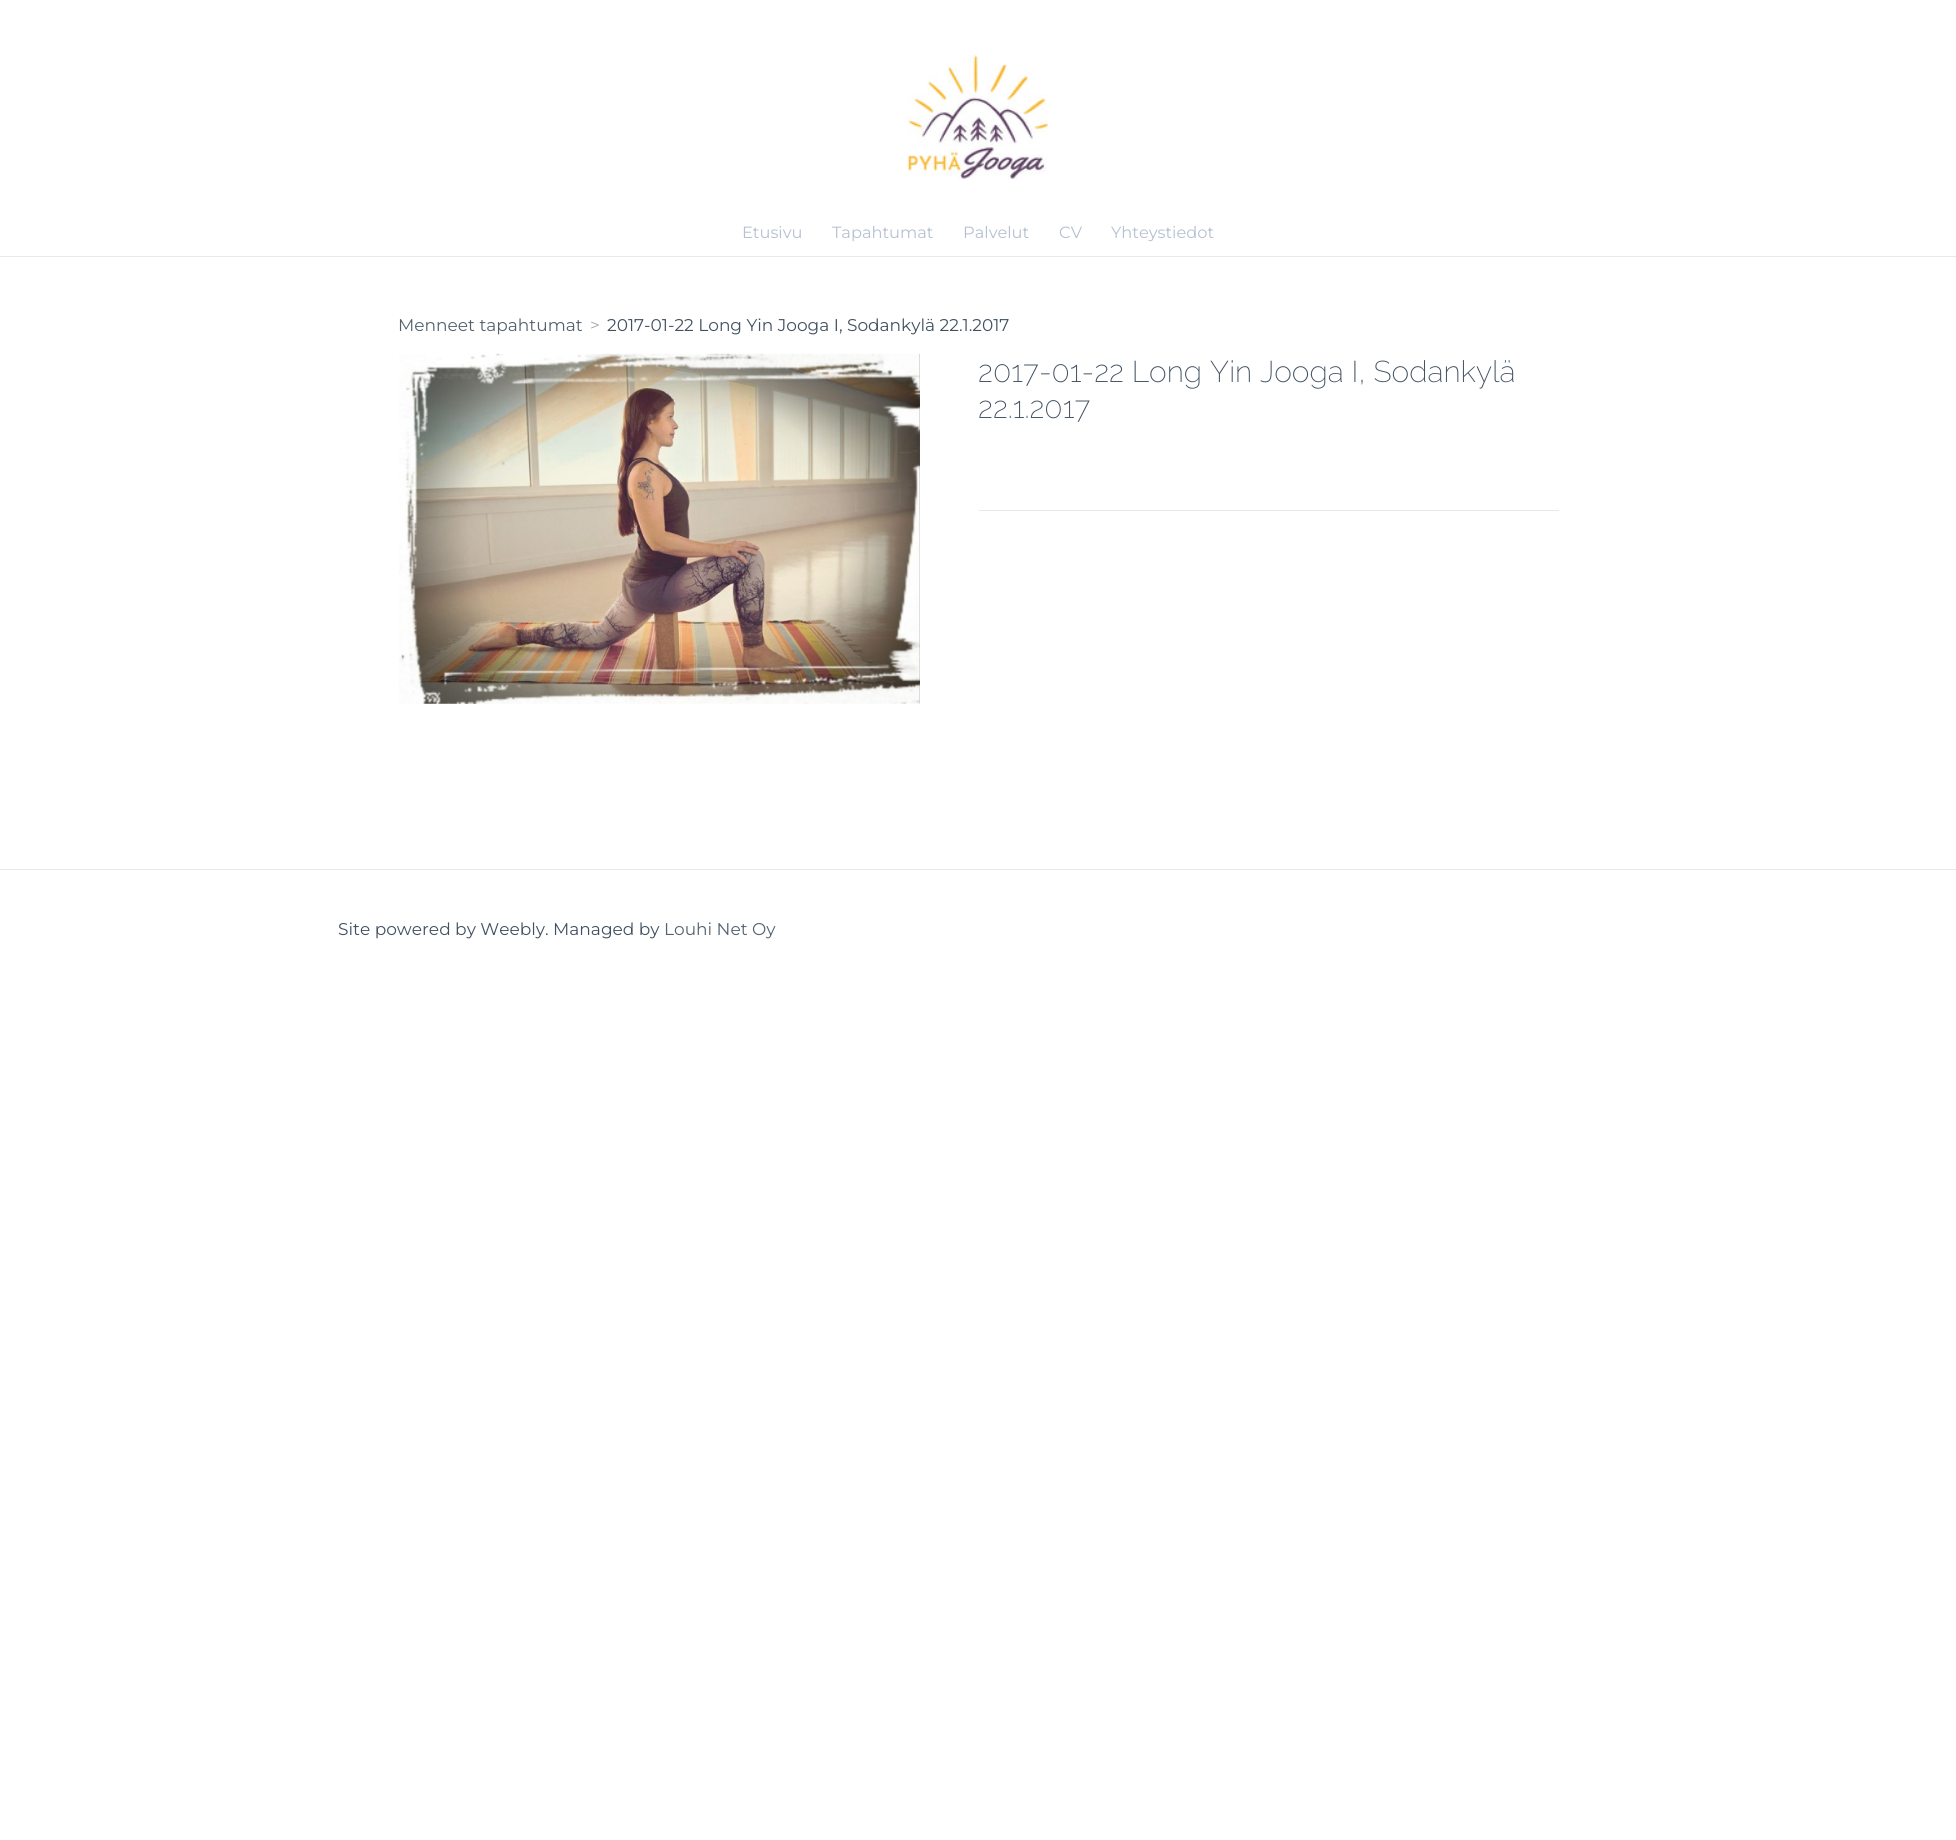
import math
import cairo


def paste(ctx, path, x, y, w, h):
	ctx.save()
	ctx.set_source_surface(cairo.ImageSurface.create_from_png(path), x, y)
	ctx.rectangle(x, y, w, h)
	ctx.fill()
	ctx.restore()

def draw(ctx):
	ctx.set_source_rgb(1, 1, 1)
	ctx.paint()
	paste(ctx, 'media/1.png', 907, 55, 141, 125)
	ctx.set_source_rgb(0.902, 0.914, 0.922)
	ctx.rectangle(0, 256, 1956, 1)
	ctx.fill()
	ctx.select_font_face('Montserrat Thin')
	ctx.set_font_size(16.25)
	ctx.set_source_rgb(0.71, 0.753, 0.82)
	for x, y, s in [
		(742, 238, 'Etusivu'),
		(832, 238, 'Tapahtumat'),
		(963, 238, 'Palvelut'),
		(1059, 238, 'CV'),
		(1111, 238, 'Yhteystiedot'),
	]:
		ctx.move_to(x, y)
		ctx.show_text(s)
	ctx.set_font_size(17)
	ctx.set_source_rgb(0.329, 0.384, 0.439)
	ctx.move_to(398, 331)
	ctx.show_text('Menneet tapahtumat')
	ctx.set_source_rgb(0.627, 0.659, 0.69)
	ctx.move_to(590, 331)
	ctx.show_text('>')
	ctx.set_source_rgb(0.255, 0.318, 0.38)
	ctx.move_to(607, 331)
	ctx.show_text('2017-01-22 Long Yin Jooga I, Sodankylä 22.1.2017')
	paste(ctx, 'media/2.png', 399, 353, 521, 351)
	ctx.select_font_face('Raleway Thin')
	ctx.set_font_size(30)
	ctx.move_to(978, 382)
	ctx.show_text('2017-01-22 Long Yin Jooga I, Sodankylä')
	ctx.move_to(978, 418)
	ctx.show_text('22.1.2017')
	ctx.set_source_rgb(0.902, 0.914, 0.922)
	ctx.rectangle(979, 510, 580, 1)
	ctx.fill()
	ctx.rectangle(0, 869, 1956, 1)
	ctx.fill()
	ctx.select_font_face('Montserrat Thin')
	ctx.set_font_size(17)
	ctx.set_source_rgb(0.255, 0.318, 0.38)
	ctx.move_to(338, 935)
	ctx.show_text('Site powered by Weebly. Managed by')
	ctx.set_source_rgb(0.329, 0.384, 0.439)
	ctx.move_to(664, 935)
	ctx.show_text('Louhi Net Oy')


surface = cairo.ImageSurface(cairo.FORMAT_RGB24, 1956, 1840)
ctx = cairo.Context(surface)
options = cairo.FontOptions()
options.set_hint_metrics(cairo.HINT_METRICS_OFF)
options.set_hint_style(cairo.HINT_STYLE_NONE)
ctx.set_font_options(options)
ctx.set_miter_limit(4)
draw(ctx)
surface.write_to_png('image.png')
